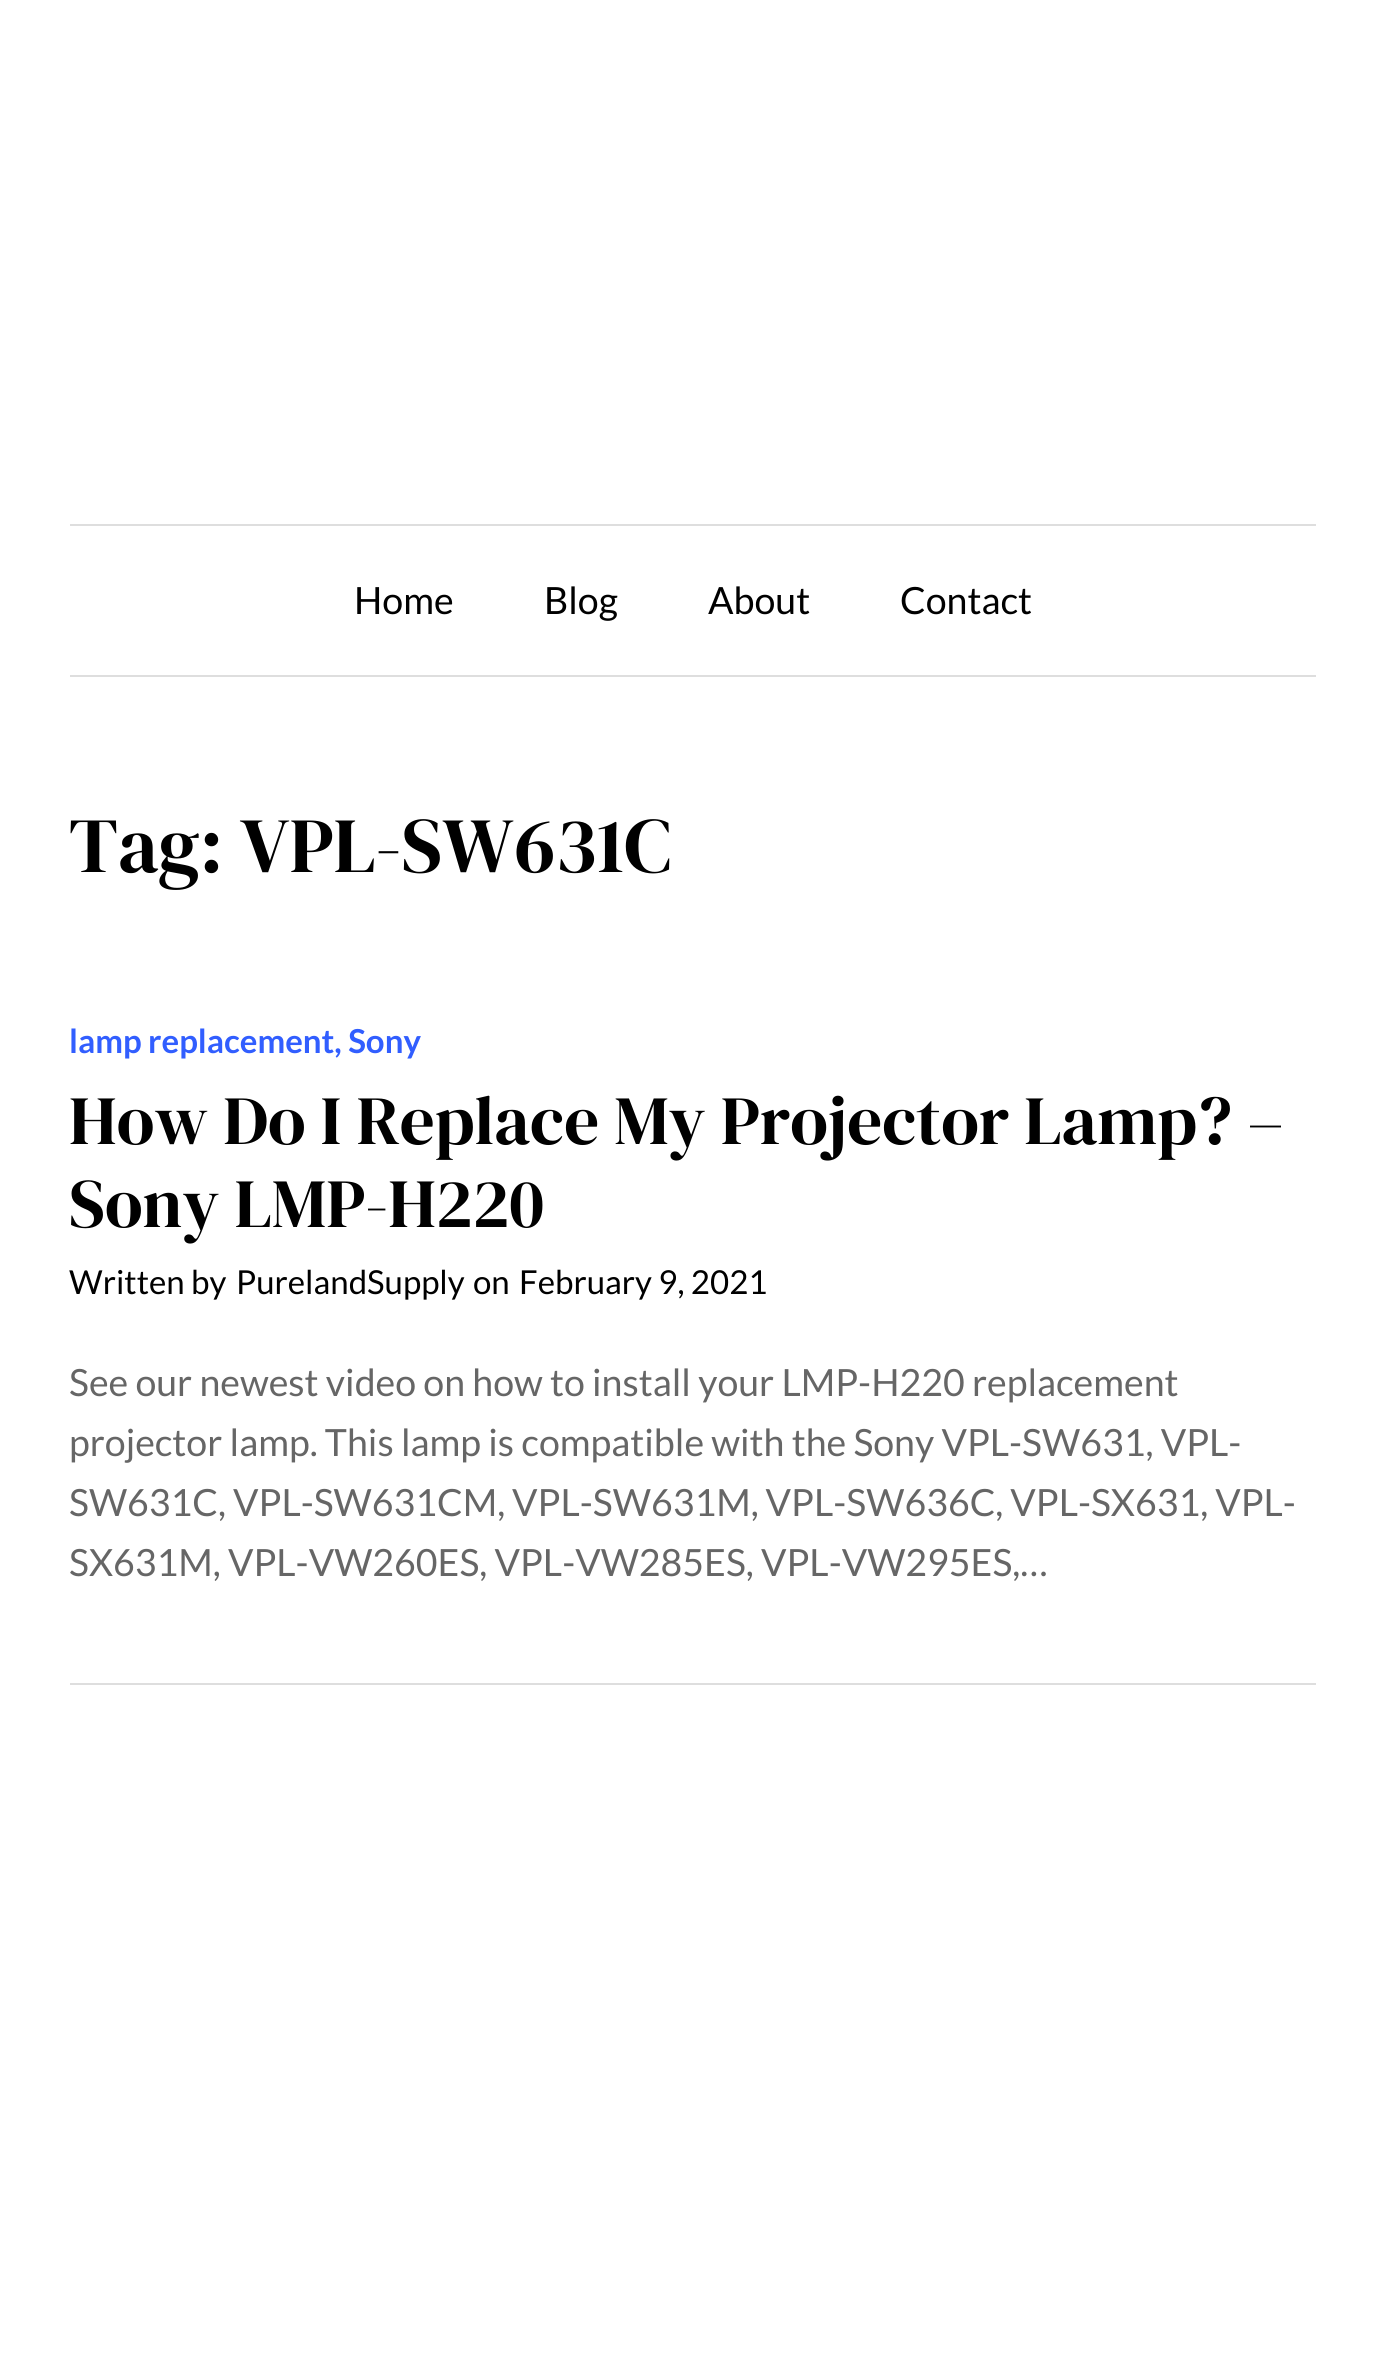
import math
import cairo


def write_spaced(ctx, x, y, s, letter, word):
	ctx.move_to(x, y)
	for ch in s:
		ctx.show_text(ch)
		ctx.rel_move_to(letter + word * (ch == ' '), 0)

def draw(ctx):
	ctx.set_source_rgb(1, 1, 1)
	ctx.paint()
	ctx.set_source_rgb(0.871, 0.871, 0.871)
	ctx.rectangle(70, 524, 1246, 2)
	ctx.fill()
	ctx.rectangle(70, 675, 1246, 2)
	ctx.fill()
	ctx.select_font_face('Lato')
	ctx.set_font_size(37.5)
	ctx.set_source_rgb(0, 0, 0)
	for x, y, s in [
		(354, 614, 'Home'),
		(544, 614, 'Blog'),
		(708, 614, 'About'),
		(900, 614, 'Contact'),
	]:
		ctx.move_to(x, y)
		ctx.show_text(s)
	ctx.select_font_face('DM Serif Display')
	ctx.set_font_size(78)
	ctx.move_to(69, 872)
	ctx.show_text('Tag: VPL-SW631C')
	ctx.set_source_rgb(0.871, 0.871, 0.871)
	ctx.rectangle(70, 1683, 1246, 2)
	ctx.fill()
	ctx.select_font_face('Lato', cairo.FONT_SLANT_NORMAL, cairo.FONT_WEIGHT_BOLD)
	ctx.set_font_size(33)
	ctx.set_source_rgb(0.192, 0.369, 1)
	ctx.move_to(69, 1053)
	ctx.show_text('lamp replacement, Sony')
	ctx.select_font_face('DM Serif Display')
	ctx.set_font_size(69)
	ctx.set_source_rgb(0, 0, 0)
	ctx.move_to(69, 1144)
	ctx.show_text('How Do I Replace My Projector Lamp? –')
	ctx.move_to(69, 1227)
	ctx.show_text('Sony LMP-H220')
	ctx.select_font_face('Lato')
	ctx.set_font_size(33)
	for x, y, s in [
		(69, 1294, 'Written by'),
		(236, 1294, 'PurelandSupply'),
		(473, 1294, 'on'),
		(519, 1294, 'February 9, 2021'),
	]:
		ctx.move_to(x, y)
		ctx.show_text(s)
	ctx.set_font_size(37.5)
	ctx.set_source_rgb(0.4, 0.4, 0.4)
	ctx.move_to(69, 1396)
	ctx.show_text('See our newest video on how to install your LMP-H220 replacement')
	ctx.move_to(69, 1456)
	ctx.show_text('projector lamp. This lamp is compatible with the Sony VPL-SW631, VPL-')
	write_spaced(ctx, 69, 1516, 'SW631C, VPL-SW631CM, VPL-SW631M, VPL-SW636C, VPL-SX631, VPL-', 0, -0.25)
	ctx.move_to(69, 1576)
	ctx.show_text('SX631M, VPL-VW260ES, VPL-VW285ES, VPL-VW295ES,…')


surface = cairo.ImageSurface(cairo.FORMAT_RGB24, 1385, 2361)
ctx = cairo.Context(surface)
options = cairo.FontOptions()
options.set_hint_metrics(cairo.HINT_METRICS_OFF)
options.set_hint_style(cairo.HINT_STYLE_NONE)
ctx.set_font_options(options)
ctx.set_miter_limit(4)
draw(ctx)
surface.write_to_png('image.png')
